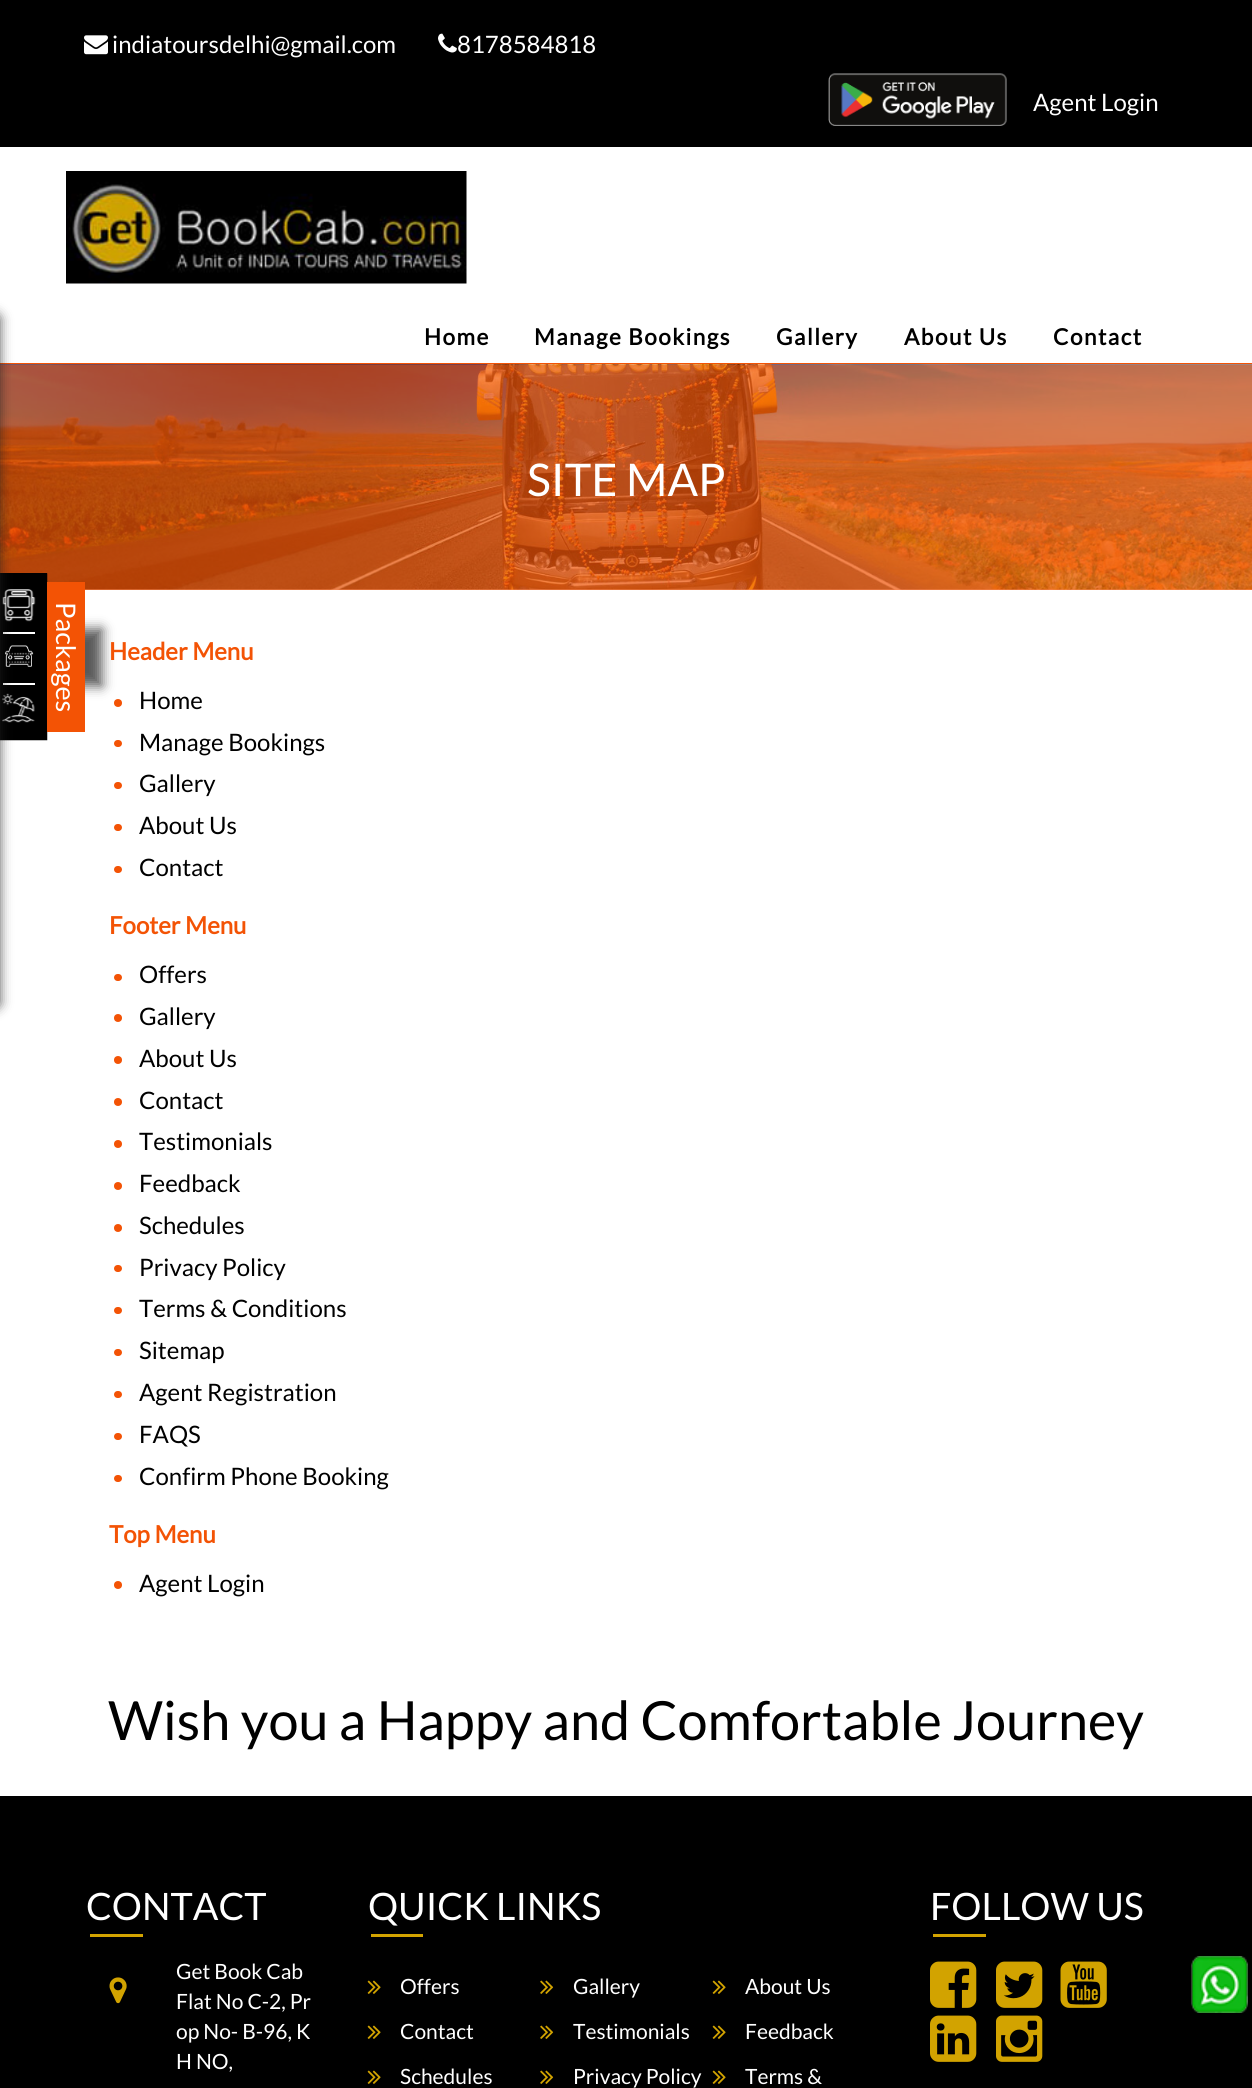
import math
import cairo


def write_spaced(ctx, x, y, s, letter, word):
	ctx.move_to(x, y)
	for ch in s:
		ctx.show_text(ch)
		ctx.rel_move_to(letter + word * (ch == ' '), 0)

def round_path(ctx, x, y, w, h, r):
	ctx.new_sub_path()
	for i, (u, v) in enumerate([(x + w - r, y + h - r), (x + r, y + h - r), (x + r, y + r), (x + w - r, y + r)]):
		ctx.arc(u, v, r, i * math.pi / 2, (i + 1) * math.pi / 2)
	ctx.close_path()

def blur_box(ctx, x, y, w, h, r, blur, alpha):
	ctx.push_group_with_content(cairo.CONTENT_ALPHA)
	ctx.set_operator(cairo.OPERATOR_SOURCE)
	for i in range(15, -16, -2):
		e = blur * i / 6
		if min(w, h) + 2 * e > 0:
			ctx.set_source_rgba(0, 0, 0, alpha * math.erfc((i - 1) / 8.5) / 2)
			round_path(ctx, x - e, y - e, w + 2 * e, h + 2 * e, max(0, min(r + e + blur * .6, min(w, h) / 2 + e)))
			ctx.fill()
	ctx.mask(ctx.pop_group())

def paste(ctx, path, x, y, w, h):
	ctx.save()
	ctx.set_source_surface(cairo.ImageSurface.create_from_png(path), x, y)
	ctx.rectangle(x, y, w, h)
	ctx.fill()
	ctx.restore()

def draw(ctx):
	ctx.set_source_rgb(1, 1, 1)
	ctx.paint()
	ctx.set_source_rgb(0.969, 0.529, 0.314)
	ctx.rectangle(85, 589, 1167, 1)
	ctx.fill()
	ctx.set_source_rgb(0, 0, 0)
	ctx.rectangle(0, 0, 1252, 147)
	ctx.fill()
	paste(ctx, 'media/1.png', 84, 35, 24, 20)
	ctx.select_font_face('Lato')
	ctx.set_font_size(24)
	ctx.set_source_rgb(1, 1, 1)
	ctx.move_to(112, 53)
	ctx.show_text('indiatoursdelhi@gmail.com')
	paste(ctx, 'media/2.png', 438, 33, 19, 20)
	ctx.move_to(457, 53)
	ctx.show_text('8178584818')
	paste(ctx, 'media/3.png', 828, 73, 179, 53)
	ctx.move_to(1033, 111)
	ctx.show_text('Agent Login')
	ctx.set_source_rgb(0.953, 0.325, 0.02)
	ctx.rectangle(0, 363, 1252, 2)
	ctx.fill()
	paste(ctx, 'media/4.png', 66, 171, 401, 113)
	ctx.select_font_face('Lato', cairo.FONT_SLANT_NORMAL, cairo.FONT_WEIGHT_BOLD)
	ctx.set_font_size(22.5)
	ctx.set_source_rgb(0, 0, 0)
	for x, y, s in [
		(424, 345, 'Home'),
		(534, 345, 'Manage Bookings'),
		(776, 345, 'Gallery'),
		(904, 345, 'About Us'),
		(1053, 345, 'Contact'),
	]:
		write_spaced(ctx, x, y, s, 1.5, 0)
	paste(ctx, 'media/5.png', 0, 364, 1252, 226)
	ctx.select_font_face('Lato')
	ctx.set_font_size(45)
	ctx.set_source_rgb(1, 1, 1)
	ctx.move_to(527, 496)
	ctx.show_text('SITE MAP')
	ctx.set_source_rgb(0.953, 0.325, 0.02)
	ctx.new_path()
	ctx.arc(118, 703, 4, 0, 2 * math.pi)
	ctx.fill()
	ctx.set_source_rgb(0.133, 0.133, 0.133)
	blur_box(ctx, -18, 629, 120, 57, 0, 6, 0.75)
	ctx.set_source_rgb(0, 0, 0)
	ctx.rectangle(0, 573, 47, 166)
	ctx.fill()
	ctx.new_path()
	ctx.move_to(46.5, 574)
	ctx.line_to(46.5, 739.5)
	ctx.line_to(-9, 739.5)
	ctx.line_to(-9, 574)
	ctx.close_path()
	ctx.set_line_width(1.5)
	ctx.stroke()
	paste(ctx, 'media/6.png', 2, 589, 34, 33)
	ctx.set_source_rgb(1, 1, 1)
	ctx.rectangle(3, 632, 32, 2)
	ctx.fill()
	paste(ctx, 'media/7.png', 5, 645, 29, 22)
	ctx.rectangle(3, 683, 32, 2)
	ctx.fill()
	paste(ctx, 'media/8.png', 2, 693, 33, 30)
	ctx.set_source_rgb(0.133, 0.133, 0.133)
	blur_box(ctx, -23, 314, 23, 694, 5, 6, 0.75)
	ctx.set_source_rgb(0.953, 0.325, 0.02)
	ctx.rectangle(47, 582, 38, 150)
	ctx.fill()
	ctx.set_font_size(27)
	ctx.set_source_rgb(1, 1, 1)
	ctx.save()
	ctx.translate(56, 602)
	ctx.rotate(90 * math.pi / 180)
	ctx.move_to(0, 0)
	ctx.show_text('Packages')
	ctx.restore()
	ctx.select_font_face('Lato', cairo.FONT_SLANT_NORMAL, cairo.FONT_WEIGHT_BOLD)
	ctx.set_font_size(24)
	ctx.set_source_rgb(0.953, 0.325, 0.02)
	ctx.move_to(109, 660)
	ctx.show_text('Header Menu')
	ctx.select_font_face('Lato')
	ctx.set_source_rgb(0, 0, 0)
	ctx.move_to(139, 709)
	ctx.show_text('Home')
	ctx.set_source_rgb(0.953, 0.325, 0.02)
	round_path(ctx, 114, 740, 8, 7, 3.5)
	ctx.fill()
	ctx.set_source_rgb(0, 0, 0)
	ctx.move_to(139, 751)
	ctx.show_text('Manage Bookings')
	ctx.set_source_rgb(0.953, 0.325, 0.02)
	round_path(ctx, 114, 782, 8, 7, 3.5)
	ctx.fill()
	ctx.set_source_rgb(0, 0, 0)
	ctx.move_to(139, 792)
	ctx.show_text('Gallery')
	ctx.set_source_rgb(0.953, 0.325, 0.02)
	round_path(ctx, 114, 824, 8, 7, 3.5)
	ctx.fill()
	ctx.set_source_rgb(0, 0, 0)
	ctx.move_to(139, 834)
	ctx.show_text('About Us')
	ctx.set_source_rgb(0.953, 0.325, 0.02)
	round_path(ctx, 114, 866, 8, 7, 3.5)
	ctx.fill()
	ctx.set_source_rgb(0, 0, 0)
	ctx.move_to(139, 876)
	ctx.show_text('Contact')
	ctx.select_font_face('Lato', cairo.FONT_SLANT_NORMAL, cairo.FONT_WEIGHT_BOLD)
	ctx.set_source_rgb(0.953, 0.325, 0.02)
	ctx.move_to(109, 934)
	ctx.show_text('Footer Menu')
	round_path(ctx, 114, 974, 8, 7, 3.5)
	ctx.fill()
	ctx.select_font_face('Lato')
	ctx.set_source_rgb(0, 0, 0)
	ctx.move_to(139, 983)
	ctx.show_text('Offers')
	ctx.set_source_rgb(0.953, 0.325, 0.02)
	ctx.new_path()
	ctx.arc(118, 1018, 4, 0, 2 * math.pi)
	ctx.fill()
	ctx.set_source_rgb(0, 0, 0)
	ctx.move_to(139, 1025)
	ctx.show_text('Gallery')
	ctx.set_source_rgb(0.953, 0.325, 0.02)
	ctx.new_path()
	ctx.arc(118, 1060, 4, 0, 2 * math.pi)
	ctx.fill()
	ctx.set_source_rgb(0, 0, 0)
	ctx.move_to(139, 1067)
	ctx.show_text('About Us')
	ctx.set_source_rgb(0.953, 0.325, 0.02)
	ctx.new_path()
	ctx.arc(118, 1102, 4, 0, 2 * math.pi)
	ctx.fill()
	ctx.set_source_rgb(0, 0, 0)
	ctx.move_to(139, 1109)
	ctx.show_text('Contact')
	ctx.set_source_rgb(0.953, 0.325, 0.02)
	ctx.new_path()
	ctx.arc(118, 1144, 4, 0, 2 * math.pi)
	ctx.fill()
	ctx.set_source_rgb(0, 0, 0)
	ctx.move_to(139, 1150)
	ctx.show_text('Testimonials')
	ctx.set_source_rgb(0.953, 0.325, 0.02)
	ctx.new_path()
	ctx.arc(118, 1186, 4, 0, 2 * math.pi)
	ctx.fill()
	ctx.set_source_rgb(0, 0, 0)
	ctx.move_to(139, 1192)
	ctx.show_text('Feedback')
	ctx.set_source_rgb(0.953, 0.325, 0.02)
	ctx.new_path()
	ctx.arc(118, 1228, 4, 0, 2 * math.pi)
	ctx.fill()
	ctx.set_source_rgb(0, 0, 0)
	ctx.move_to(139, 1234)
	ctx.show_text('Schedules')
	ctx.set_source_rgb(0.953, 0.325, 0.02)
	round_path(ctx, 114, 1265, 8, 7, 3.5)
	ctx.fill()
	ctx.set_source_rgb(0, 0, 0)
	ctx.move_to(139, 1276)
	ctx.show_text('Privacy Policy')
	ctx.set_source_rgb(0.953, 0.325, 0.02)
	round_path(ctx, 114, 1307, 8, 7, 3.5)
	ctx.fill()
	ctx.set_source_rgb(0, 0, 0)
	ctx.move_to(139, 1317)
	ctx.show_text('Terms & Conditions')
	ctx.set_source_rgb(0.953, 0.325, 0.02)
	round_path(ctx, 114, 1349, 8, 7, 3.5)
	ctx.fill()
	ctx.set_source_rgb(0, 0, 0)
	ctx.move_to(139, 1359)
	ctx.show_text('Sitemap')
	ctx.set_source_rgb(0.953, 0.325, 0.02)
	round_path(ctx, 114, 1391, 8, 7, 3.5)
	ctx.fill()
	ctx.set_source_rgb(0, 0, 0)
	ctx.move_to(139, 1401)
	ctx.show_text('Agent Registration')
	ctx.set_source_rgb(0.953, 0.325, 0.02)
	round_path(ctx, 114, 1433, 8, 7, 3.5)
	ctx.fill()
	ctx.set_source_rgb(0, 0, 0)
	ctx.move_to(139, 1443)
	ctx.show_text('FAQS')
	ctx.set_source_rgb(0.953, 0.325, 0.02)
	round_path(ctx, 114, 1475, 8, 7, 3.5)
	ctx.fill()
	ctx.set_source_rgb(0, 0, 0)
	ctx.move_to(139, 1485)
	ctx.show_text('Confirm Phone Booking')
	ctx.select_font_face('Lato', cairo.FONT_SLANT_NORMAL, cairo.FONT_WEIGHT_BOLD)
	ctx.set_source_rgb(0.953, 0.325, 0.02)
	ctx.move_to(109, 1543)
	ctx.show_text('Top Menu')
	ctx.new_path()
	ctx.arc(118, 1585, 4, 0, 2 * math.pi)
	ctx.fill()
	ctx.select_font_face('Lato')
	ctx.set_source_rgb(0, 0, 0)
	ctx.move_to(139, 1592)
	ctx.show_text('Agent Login')
	ctx.set_font_size(54)
	ctx.move_to(108, 1740)
	ctx.show_text('Wish you a Happy and Comfortable Journey')
	ctx.rectangle(0, 1796, 1252, 292)
	ctx.fill()
	ctx.set_font_size(37.75)
	ctx.set_source_rgb(1, 1, 1)
	ctx.move_to(86, 1920)
	ctx.show_text('CONTACT')
	ctx.set_source_rgb(0.824, 0.639, 0)
	ctx.rectangle(90, 1934, 53, 3)
	ctx.fill()
	paste(ctx, 'media/9.png', 109, 1977, 18, 27)
	ctx.set_font_size(21)
	ctx.set_source_rgb(1, 1, 1)
	for x, y, s in [
		(176, 1979, 'Get Book Cab'),
		(176, 2009, 'Flat No C-2, Pr'),
		(176, 2039, 'op No- B-96, K'),
		(176, 2069, 'H NO,'),
	]:
		ctx.move_to(x, y)
		ctx.show_text(s)
	ctx.set_font_size(37.75)
	ctx.move_to(368, 1920)
	ctx.show_text('QUICK LINKS')
	ctx.set_source_rgb(0.824, 0.639, 0)
	ctx.rectangle(371, 1934, 52, 3)
	ctx.fill()
	paste(ctx, 'media/10.png', 367, 1980, 14, 14)
	ctx.set_font_size(21)
	ctx.set_source_rgb(1, 1, 1)
	ctx.move_to(400, 1994)
	ctx.show_text('Offers')
	paste(ctx, 'media/11.png', 540, 1980, 14, 14)
	ctx.move_to(573, 1994)
	ctx.show_text('Gallery')
	paste(ctx, 'media/10.png', 712, 1980, 14, 14)
	ctx.move_to(745, 1994)
	ctx.show_text('About Us')
	paste(ctx, 'media/10.png', 367, 2025, 14, 14)
	ctx.move_to(400, 2039)
	ctx.show_text('Contact')
	paste(ctx, 'media/11.png', 540, 2025, 14, 14)
	ctx.move_to(573, 2039)
	ctx.show_text('Testimonials')
	paste(ctx, 'media/10.png', 712, 2025, 14, 14)
	ctx.move_to(745, 2039)
	ctx.show_text('Feedback')
	paste(ctx, 'media/10.png', 367, 2070, 14, 14)
	ctx.move_to(400, 2084)
	ctx.show_text('Schedules')
	paste(ctx, 'media/11.png', 540, 2070, 14, 14)
	ctx.move_to(573, 2084)
	ctx.show_text('Privacy Policy')
	paste(ctx, 'media/10.png', 712, 2070, 14, 14)
	ctx.move_to(745, 2084)
	ctx.show_text('Terms &')
	ctx.set_font_size(37.75)
	ctx.move_to(930, 1920)
	ctx.show_text('FOLLOW US')
	ctx.set_source_rgb(0.824, 0.639, 0)
	ctx.rectangle(933, 1934, 53, 3)
	ctx.fill()
	paste(ctx, 'media/12.png', 930, 1961, 47, 47)
	paste(ctx, 'media/13.png', 996, 1961, 47, 47)
	paste(ctx, 'media/14.png', 1060, 1961, 47, 47)
	paste(ctx, 'media/15.png', 930, 2015, 47, 47)
	paste(ctx, 'media/16.png', 996, 2015, 47, 47)
	paste(ctx, 'media/17.png', 1191, 1956, 57, 57)


surface = cairo.ImageSurface(cairo.FORMAT_RGB24, 1252, 2088)
ctx = cairo.Context(surface)
options = cairo.FontOptions()
options.set_hint_metrics(cairo.HINT_METRICS_OFF)
options.set_hint_style(cairo.HINT_STYLE_NONE)
ctx.set_font_options(options)
ctx.set_miter_limit(4)
draw(ctx)
surface.write_to_png('image.png')
